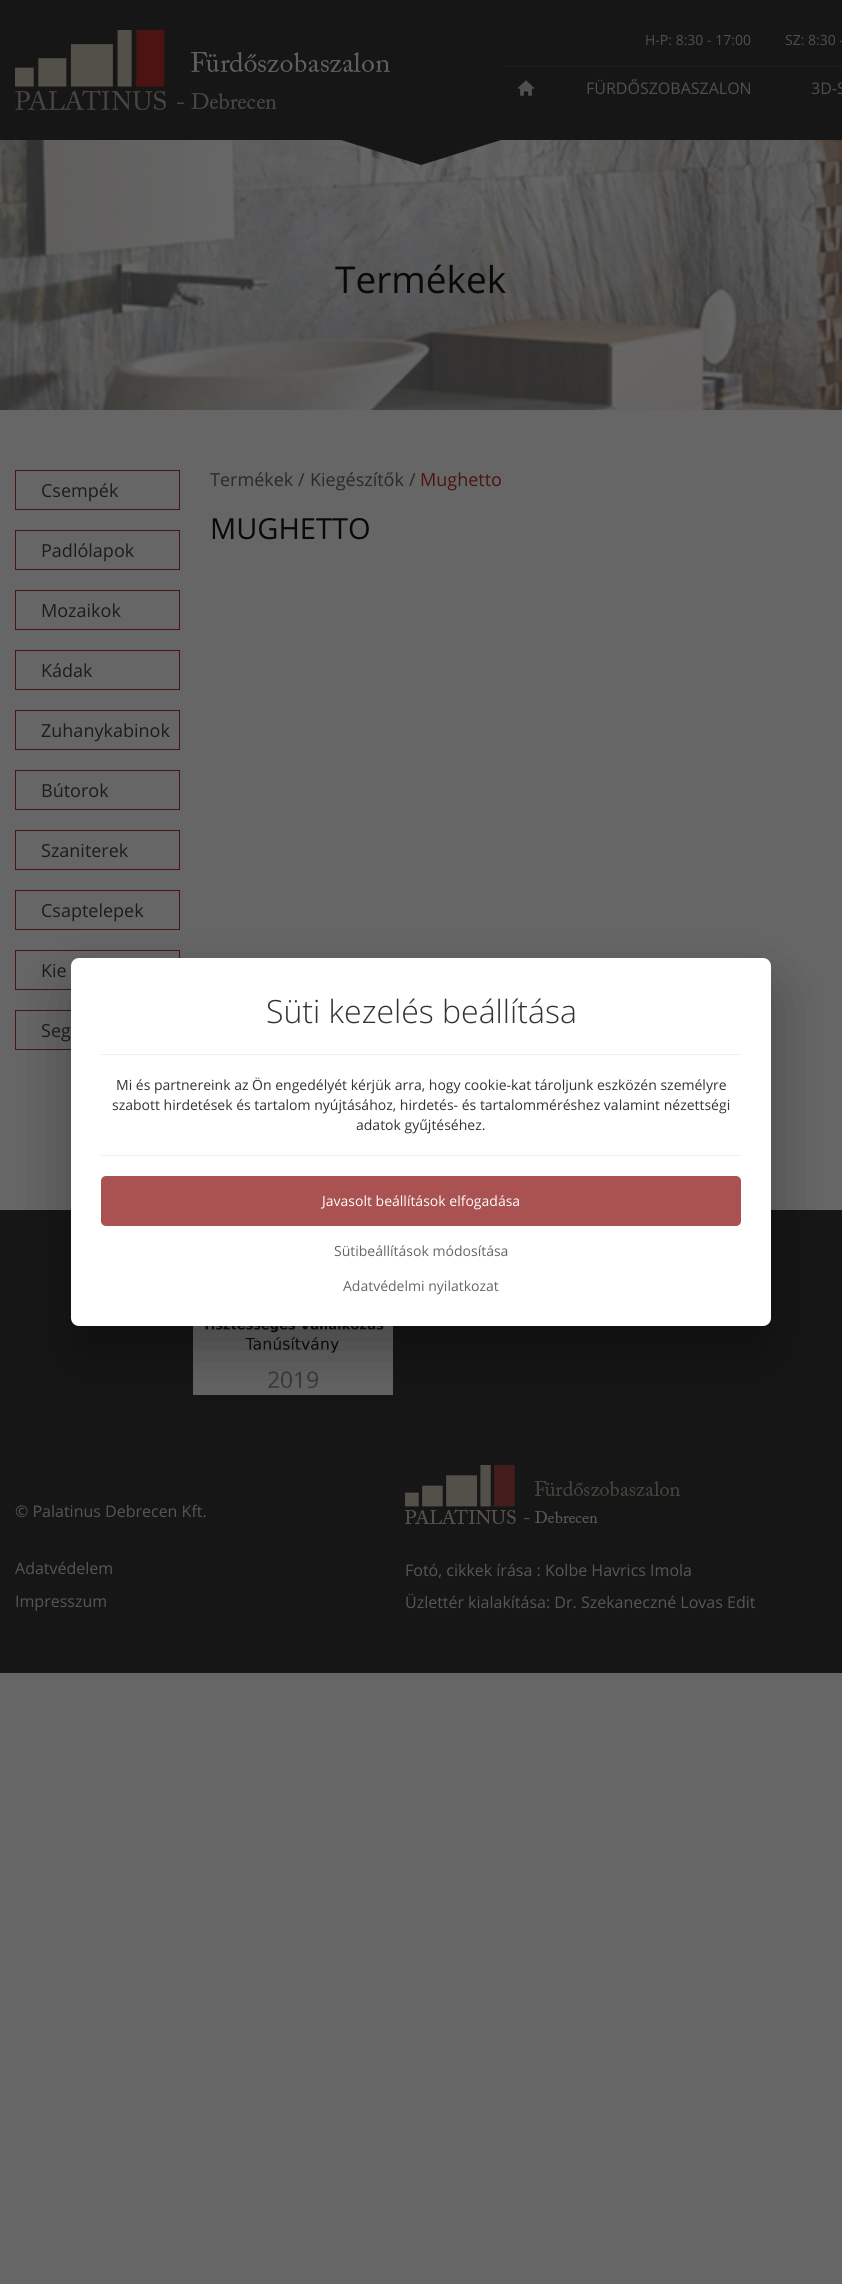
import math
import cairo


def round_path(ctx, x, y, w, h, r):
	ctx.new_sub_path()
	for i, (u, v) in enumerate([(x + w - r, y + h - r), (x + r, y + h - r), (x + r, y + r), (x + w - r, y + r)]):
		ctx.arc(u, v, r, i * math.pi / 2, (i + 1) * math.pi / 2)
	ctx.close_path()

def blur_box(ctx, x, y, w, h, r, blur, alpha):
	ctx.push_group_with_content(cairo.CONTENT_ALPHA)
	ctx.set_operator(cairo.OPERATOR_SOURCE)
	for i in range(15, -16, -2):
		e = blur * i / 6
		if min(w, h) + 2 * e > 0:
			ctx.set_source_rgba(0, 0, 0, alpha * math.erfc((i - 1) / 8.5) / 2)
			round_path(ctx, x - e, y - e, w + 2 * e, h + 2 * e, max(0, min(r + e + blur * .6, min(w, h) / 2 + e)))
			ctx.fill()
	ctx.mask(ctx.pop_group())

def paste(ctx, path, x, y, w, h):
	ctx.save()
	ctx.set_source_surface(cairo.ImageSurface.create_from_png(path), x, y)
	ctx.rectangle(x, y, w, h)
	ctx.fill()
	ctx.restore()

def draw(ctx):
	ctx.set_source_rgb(0.4, 0.4, 0.4)
	ctx.paint()
	ctx.set_source_rgb(0.086, 0.086, 0.086)
	ctx.rectangle(0, 0, 842, 140)
	ctx.fill()
	paste(ctx, 'media/1.png', 15, 30, 375, 80)
	ctx.select_font_face('Open Sans')
	ctx.set_font_size(14)
	ctx.set_source_rgb(0.31, 0.31, 0.31)
	ctx.move_to(645, 45)
	ctx.show_text('H-P: 8:30 - 17:00')
	ctx.move_to(785, 45)
	ctx.show_text('SZ: 8:30 -')
	ctx.set_source_rgb(0.106, 0.106, 0.106)
	ctx.rectangle(503, 65, 339, 2)
	ctx.fill()
	paste(ctx, 'media/2.png', 518, 80, 16, 16)
	ctx.set_font_size(16)
	ctx.set_source_rgb(0.31, 0.31, 0.31)
	ctx.move_to(586, 94)
	ctx.show_text('FÜRDŐSZOBASZALON')
	ctx.move_to(811, 94)
	ctx.show_text('3D-S')
	paste(ctx, 'media/3.png', 0, 140, 842, 270)
	ctx.set_source_rgb(0.086, 0.086, 0.086)
	ctx.new_path()
	ctx.move_to(341, 140)
	ctx.line_to(501, 140)
	ctx.line_to(421, 165)
	ctx.close_path()
	ctx.fill()
	ctx.set_font_size(37)
	ctx.set_source_rgb(0.039, 0.039, 0.039)
	ctx.move_to(335, 293)
	ctx.show_text('Termékek')
	ctx.rectangle(15.5, 470.5, 164, 39)
	ctx.set_source_rgb(0.298, 0.075, 0.075)
	ctx.set_line_width(1)
	ctx.stroke()
	ctx.set_font_size(18)
	ctx.set_source_rgb(0.11, 0.11, 0.11)
	ctx.move_to(41, 497)
	ctx.show_text('Csempék')
	ctx.rectangle(15.5, 530.5, 164, 39)
	ctx.set_source_rgb(0.298, 0.075, 0.075)
	ctx.stroke()
	ctx.set_source_rgb(0.11, 0.11, 0.11)
	ctx.move_to(41, 557)
	ctx.show_text('Padlólapok')
	ctx.rectangle(15.5, 590.5, 164, 39)
	ctx.set_source_rgb(0.298, 0.075, 0.075)
	ctx.stroke()
	ctx.set_source_rgb(0.11, 0.11, 0.11)
	ctx.move_to(41, 617)
	ctx.show_text('Mozaikok')
	ctx.rectangle(15.5, 650.5, 164, 39)
	ctx.set_source_rgb(0.298, 0.075, 0.075)
	ctx.stroke()
	ctx.set_source_rgb(0.11, 0.11, 0.11)
	ctx.move_to(41, 677)
	ctx.show_text('Kádak')
	ctx.rectangle(15.5, 710.5, 164, 39)
	ctx.set_source_rgb(0.298, 0.075, 0.075)
	ctx.stroke()
	ctx.set_source_rgb(0.11, 0.11, 0.11)
	ctx.move_to(41, 737)
	ctx.show_text('Zuhanykabinok')
	ctx.rectangle(15.5, 770.5, 164, 39)
	ctx.set_source_rgb(0.298, 0.075, 0.075)
	ctx.stroke()
	ctx.set_source_rgb(0.11, 0.11, 0.11)
	ctx.move_to(41, 797)
	ctx.show_text('Bútorok')
	ctx.rectangle(15.5, 830.5, 164, 39)
	ctx.set_source_rgb(0.298, 0.075, 0.075)
	ctx.stroke()
	ctx.set_source_rgb(0.11, 0.11, 0.11)
	ctx.move_to(41, 857)
	ctx.show_text('Szaniterek')
	ctx.rectangle(15.5, 890.5, 164, 39)
	ctx.set_source_rgb(0.298, 0.075, 0.075)
	ctx.stroke()
	ctx.set_source_rgb(0.11, 0.11, 0.11)
	ctx.move_to(41, 917)
	ctx.show_text('Csaptelepek')
	ctx.rectangle(15.5, 950.5, 164, 39)
	ctx.set_source_rgb(0.298, 0.075, 0.075)
	ctx.stroke()
	ctx.set_source_rgb(0.11, 0.11, 0.11)
	ctx.move_to(41, 977)
	ctx.show_text('Kie')
	ctx.rectangle(15.5, 1010.5, 164, 39)
	ctx.set_source_rgb(0.298, 0.075, 0.075)
	ctx.stroke()
	ctx.set_source_rgb(0.11, 0.11, 0.11)
	ctx.move_to(41, 1037)
	ctx.show_text('Seg')
	ctx.set_source_rgb(0.161, 0.161, 0.161)
	for x, y, s in [
		(210, 486, 'Termékek'),
		(298, 486, '/'),
		(310, 486, 'Kiegészítők'),
		(409, 486, '/'),
	]:
		ctx.move_to(x, y)
		ctx.show_text(s)
	ctx.set_source_rgb(0.298, 0.075, 0.075)
	ctx.move_to(420, 486)
	ctx.show_text('Mughetto')
	ctx.set_font_size(29)
	ctx.set_source_rgb(0.039, 0.039, 0.039)
	ctx.move_to(210, 539)
	ctx.show_text('MUGHETTO')
	ctx.set_source_rgb(0.086, 0.086, 0.086)
	ctx.rectangle(0, 1210, 842, 463)
	ctx.fill()
	paste(ctx, 'media/4.png', 193, 1326, 200, 69)
	ctx.set_source_rgb(0, 0, 0)
	blur_box(ctx, 71, 988, 700, 368, 8, 30, 0.3)
	ctx.set_source_rgb(1, 1, 1)
	round_path(ctx, 71, 958, 700, 368, 8)
	ctx.fill()
	ctx.select_font_face('Open Sans Light')
	ctx.set_font_size(32)
	ctx.set_source_rgb(0.2, 0.2, 0.2)
	ctx.move_to(266, 1023)
	ctx.show_text('Süti kezelés beállítása')
	ctx.set_source_rgb(0.933, 0.933, 0.933)
	ctx.rectangle(101, 1054, 640, 1)
	ctx.fill()
	ctx.rectangle(101, 1155, 640, 1)
	ctx.fill()
	ctx.select_font_face('Open Sans')
	ctx.set_font_size(14)
	ctx.set_source_rgb(0.2, 0.2, 0.2)
	for x, y, s in [
		(116, 1090, 'Mi és partnereink az Ön engedélyét kérjük arra, hogy cookie-kat tároljunk eszközén személyre'),
		(112, 1110, 'szabott hirdetések és tartalom nyújtásához, hirdetés- és tartalomméréshez valamint nézettségi'),
		(356, 1130, 'adatok gyűjtéséhez.'),
	]:
		ctx.move_to(x, y)
		ctx.show_text(s)
	ctx.set_source_rgb(0.667, 0.318, 0.318)
	round_path(ctx, 101, 1176, 640, 50, 5)
	ctx.fill()
	ctx.set_source_rgb(1, 1, 1)
	ctx.move_to(322, 1206)
	ctx.show_text('Javasolt beállítások elfogadása')
	ctx.set_source_rgb(0.4, 0.4, 0.4)
	ctx.move_to(334, 1256)
	ctx.show_text('Sütibeállítások módosítása')
	ctx.move_to(343, 1291)
	ctx.show_text('Adatvédelmi nyilatkozat')
	ctx.set_font_size(16)
	ctx.set_source_rgb(0.345, 0.337, 0.314)
	for x, y, s in [
		(15, 1517, '© Palatinus Debrecen Kft.'),
		(15, 1574, 'Adatvédelem'),
		(15, 1607, 'Impresszum'),
	]:
		ctx.move_to(x, y)
		ctx.show_text(s)
	paste(ctx, 'media/5.png', 405, 1465, 276, 59)
	ctx.move_to(405, 1576)
	ctx.show_text('Fotó, cikkek írása : Kolbe Havrics Imola')
	ctx.move_to(405, 1608)
	ctx.show_text('Üzlettér kialakítása: Dr. Szekaneczné Lovas Edit')


surface = cairo.ImageSurface(cairo.FORMAT_RGB24, 842, 2284)
ctx = cairo.Context(surface)
options = cairo.FontOptions()
options.set_hint_metrics(cairo.HINT_METRICS_OFF)
options.set_hint_style(cairo.HINT_STYLE_NONE)
ctx.set_font_options(options)
ctx.set_miter_limit(4)
draw(ctx)
surface.write_to_png('image.png')
